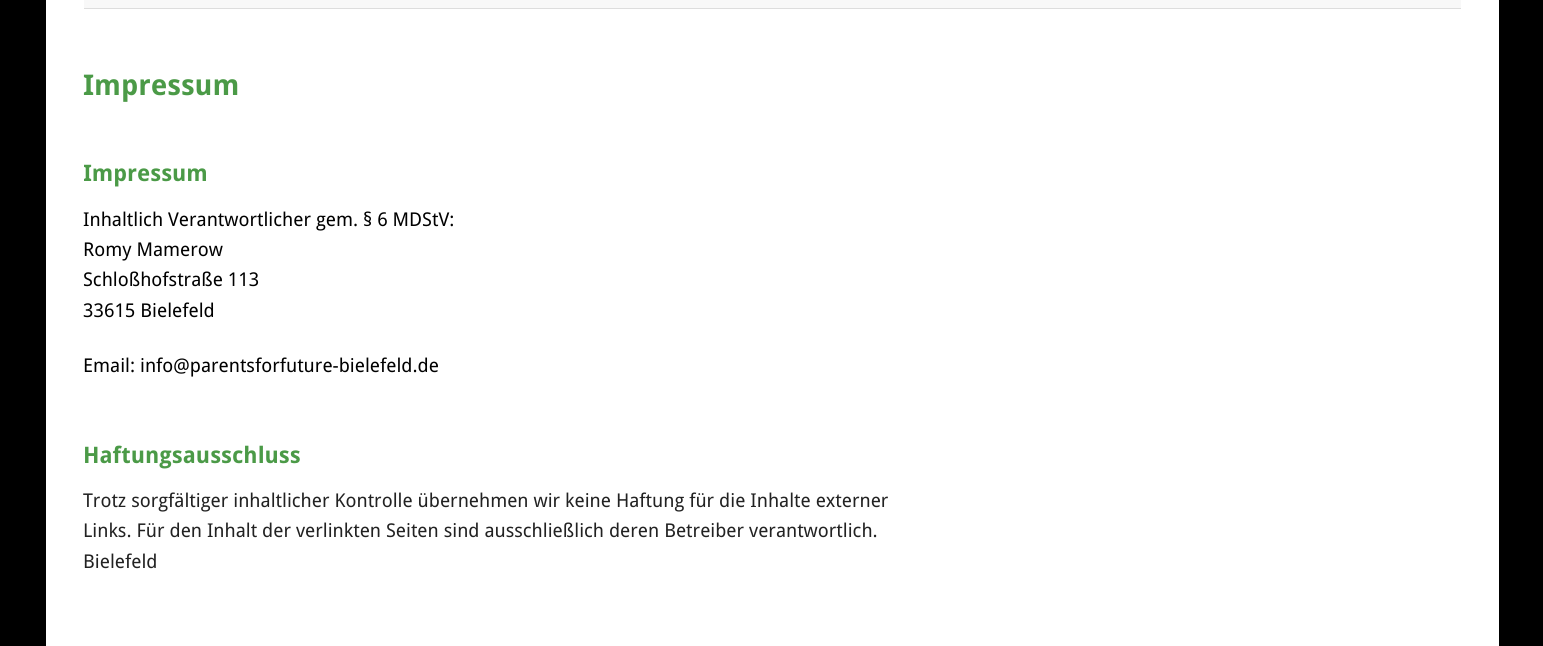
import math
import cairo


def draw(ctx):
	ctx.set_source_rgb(0, 0, 0)
	ctx.paint()
	ctx.set_source_rgb(1, 1, 1)
	ctx.rectangle(46, 0, 1453, 646)
	ctx.fill()
	ctx.set_source_rgb(0.969, 0.969, 0.969)
	ctx.rectangle(84, 0, 1377, 8)
	ctx.fill()
	ctx.set_source_rgb(0.867, 0.867, 0.867)
	ctx.rectangle(84, 8, 1377, 1)
	ctx.fill()
	ctx.select_font_face('Droid Sans', cairo.FONT_SLANT_NORMAL, cairo.FONT_WEIGHT_BOLD)
	ctx.set_font_size(28.5)
	ctx.set_source_rgb(0.294, 0.604, 0.278)
	ctx.move_to(83, 95)
	ctx.show_text('Impressum')
	ctx.save()
	ctx.rectangle(84, 64, 1377, 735)
	ctx.clip()
	ctx.set_font_size(22.75)
	ctx.move_to(83, 181)
	ctx.show_text('Impressum')
	ctx.restore()
	ctx.select_font_face('Droid Sans')
	ctx.set_font_size(19)
	ctx.set_source_rgb(0, 0, 0)
	for x, y, s in [
		(83, 226, 'Inhaltlich Verantwortlicher gem. § 6 MDStV:'),
		(83, 256, 'Romy Mamerow'),
		(83, 286, 'Schloßhofstraße 113'),
		(83, 317, '33615 Bielefeld'),
		(83, 372, 'Email: info@parentsforfuture-bielefeld.de'),
	]:
		ctx.move_to(x, y)
		ctx.show_text(s)
	ctx.select_font_face('Droid Sans', cairo.FONT_SLANT_NORMAL, cairo.FONT_WEIGHT_BOLD)
	ctx.set_font_size(22.75)
	ctx.set_source_rgb(0.294, 0.604, 0.278)
	ctx.move_to(83, 463)
	ctx.show_text('Haftungsausschluss')
	ctx.select_font_face('Droid Sans')
	ctx.set_font_size(19)
	ctx.set_source_rgb(0.133, 0.133, 0.133)
	for x, y, s in [
		(83, 507, 'Trotz sorgfältiger inhaltlicher Kontrolle übernehmen wir keine Haftung für die Inhalte externer'),
		(83, 537, 'Links. Für den Inhalt der verlinkten Seiten sind ausschließlich deren Betreiber verantwortlich.'),
		(83, 568, 'Bielefeld'),
	]:
		ctx.move_to(x, y)
		ctx.show_text(s)


surface = cairo.ImageSurface(cairo.FORMAT_RGB24, 1543, 646)
ctx = cairo.Context(surface)
options = cairo.FontOptions()
options.set_hint_metrics(cairo.HINT_METRICS_OFF)
options.set_hint_style(cairo.HINT_STYLE_NONE)
ctx.set_font_options(options)
ctx.set_miter_limit(4)
draw(ctx)
surface.write_to_png('image.png')
